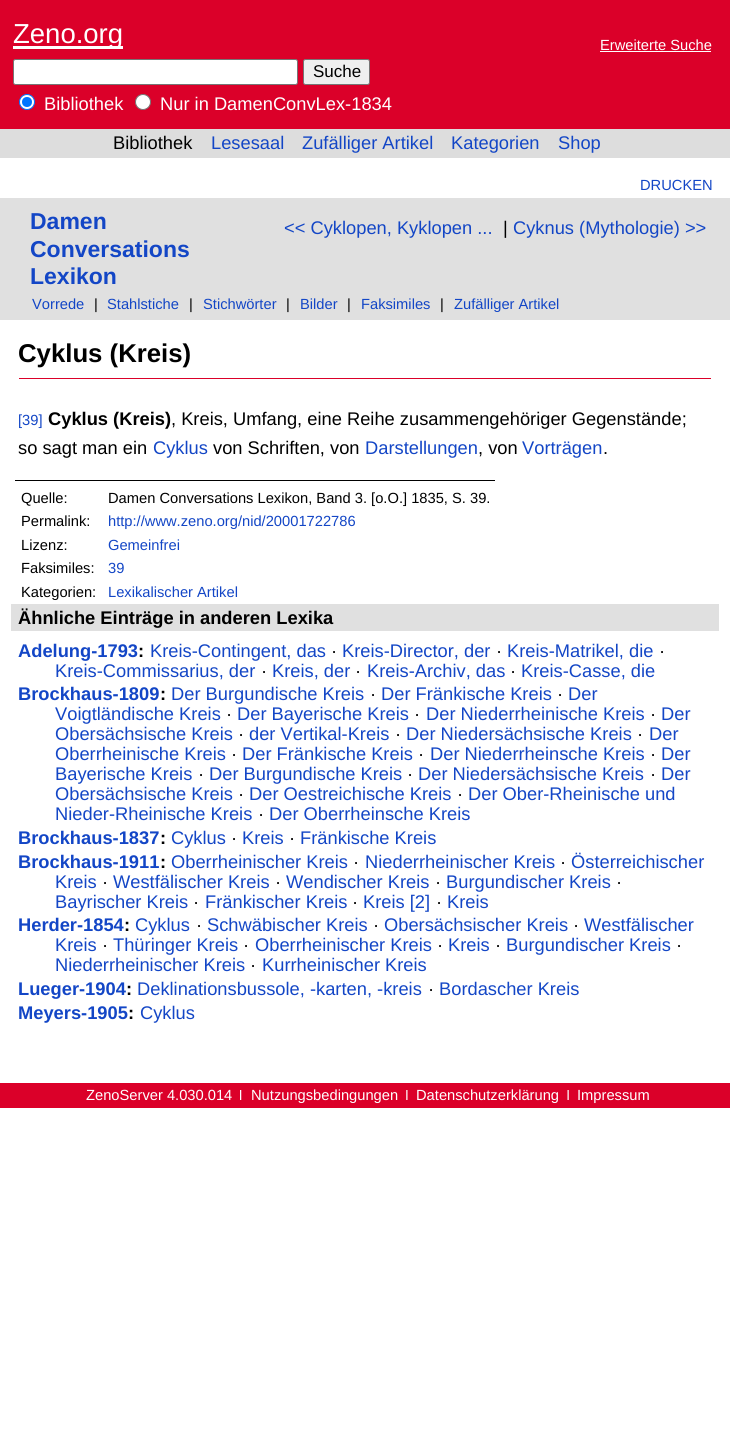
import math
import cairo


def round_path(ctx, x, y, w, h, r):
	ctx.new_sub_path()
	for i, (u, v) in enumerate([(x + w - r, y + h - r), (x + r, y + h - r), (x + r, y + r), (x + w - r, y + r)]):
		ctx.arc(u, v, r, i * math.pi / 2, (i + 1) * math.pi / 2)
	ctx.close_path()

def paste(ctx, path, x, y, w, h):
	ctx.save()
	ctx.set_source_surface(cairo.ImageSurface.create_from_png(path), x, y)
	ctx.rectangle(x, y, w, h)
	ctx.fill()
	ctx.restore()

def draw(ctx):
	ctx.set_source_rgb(1, 1, 1)
	ctx.paint()
	ctx.set_source_rgb(0.859, 0, 0.161)
	ctx.rectangle(0, 0, 730, 129)
	ctx.fill()
	ctx.set_source_rgb(1, 1, 1)
	ctx.rectangle(13, 46, 110, 3)
	ctx.fill()
	ctx.select_font_face('Liberation Sans')
	ctx.set_font_size(27.5)
	ctx.move_to(13, 43)
	ctx.show_text('Zeno.org')
	ctx.set_font_size(14.7)
	ctx.move_to(600, 50)
	ctx.show_text('Erweiterte Suche')
	ctx.rectangle(600, 51, 111, 1)
	ctx.fill()
	round_path(ctx, 13.5, 59.5, 284, 25, 2)
	ctx.fill_preserve()
	ctx.set_source_rgb(0.463, 0.463, 0.463)
	ctx.set_line_width(1)
	ctx.stroke()
	ctx.set_source_rgb(0.937, 0.937, 0.937)
	round_path(ctx, 303.5, 59.5, 66, 25, 2)
	ctx.fill_preserve()
	ctx.set_source_rgb(0.463, 0.463, 0.463)
	ctx.stroke()
	ctx.set_font_size(17)
	ctx.set_source_rgb(0, 0, 0)
	ctx.move_to(313, 77)
	ctx.show_text('Suche')
	ctx.set_source_rgb(1, 1, 1)
	ctx.new_path()
	ctx.arc(27, 102, 7.5, 0, 2 * math.pi)
	ctx.fill_preserve()
	ctx.set_source_rgb(0, 0.459, 1)
	ctx.stroke()
	ctx.arc(27, 102, 5, 0, 2 * math.pi)
	ctx.fill()
	ctx.set_font_size(18.3)
	ctx.set_source_rgb(1, 1, 1)
	ctx.move_to(44, 110)
	ctx.show_text('Bibliothek')
	ctx.new_path()
	ctx.arc(143, 102, 7.5, 0, 2 * math.pi)
	ctx.fill_preserve()
	ctx.set_source_rgb(0.463, 0.463, 0.463)
	ctx.stroke()
	ctx.set_source_rgb(1, 1, 1)
	ctx.move_to(160, 110)
	ctx.show_text('Nur in DamenConvLex-1834')
	ctx.set_source_rgb(0.867, 0.867, 0.867)
	ctx.rectangle(0, 129, 730, 29)
	ctx.fill()
	ctx.set_source_rgb(0, 0, 0)
	ctx.move_to(113, 149)
	ctx.show_text('Bibliothek')
	ctx.set_source_rgb(0.078, 0.275, 0.776)
	for x, y, s in [
		(211, 149, 'Lesesaal'),
		(302, 149, 'Zufälliger Artikel'),
		(451, 149, 'Kategorien'),
		(558, 149, 'Shop'),
	]:
		ctx.move_to(x, y)
		ctx.show_text(s)
	ctx.set_font_size(14.7)
	ctx.move_to(640, 190)
	ctx.show_text('DRUCKEN')
	ctx.set_source_rgb(0.878, 0.878, 0.878)
	ctx.rectangle(0, 198, 730, 122)
	ctx.fill()
	ctx.select_font_face('Liberation Sans', cairo.FONT_SLANT_NORMAL, cairo.FONT_WEIGHT_BOLD)
	ctx.set_font_size(23)
	ctx.set_source_rgb(0.078, 0.275, 0.776)
	for x, y, s in [
		(30, 229, 'Damen'),
		(30, 257, 'Conversations'),
		(30, 284, 'Lexikon'),
	]:
		ctx.move_to(x, y)
		ctx.show_text(s)
	ctx.select_font_face('Liberation Sans')
	ctx.set_font_size(18.3)
	ctx.move_to(284, 234)
	ctx.show_text('<< Cyklopen, Kyklopen ...')
	ctx.set_source_rgb(0, 0, 0)
	ctx.move_to(503, 234)
	ctx.show_text('|')
	ctx.set_source_rgb(0.078, 0.275, 0.776)
	ctx.move_to(513, 234)
	ctx.show_text('Cyknus (Mythologie) >>')
	ctx.set_font_size(14.7)
	ctx.move_to(32, 309)
	ctx.show_text('Vorrede')
	ctx.set_source_rgb(0, 0, 0)
	ctx.move_to(94, 309)
	ctx.show_text('|')
	ctx.set_source_rgb(0.078, 0.275, 0.776)
	ctx.move_to(107, 309)
	ctx.show_text('Stahlstiche')
	ctx.set_source_rgb(0, 0, 0)
	ctx.move_to(189, 309)
	ctx.show_text('|')
	ctx.set_source_rgb(0.078, 0.275, 0.776)
	ctx.move_to(203, 309)
	ctx.show_text('Stichwörter')
	ctx.set_source_rgb(0, 0, 0)
	ctx.move_to(286, 309)
	ctx.show_text('|')
	ctx.set_source_rgb(0.078, 0.275, 0.776)
	ctx.move_to(300, 309)
	ctx.show_text('Bilder')
	ctx.set_source_rgb(0, 0, 0)
	ctx.move_to(347, 309)
	ctx.show_text('|')
	ctx.set_source_rgb(0.078, 0.275, 0.776)
	ctx.move_to(361, 309)
	ctx.show_text('Faksimiles')
	ctx.set_source_rgb(0, 0, 0)
	ctx.move_to(440, 309)
	ctx.show_text('|')
	ctx.set_source_rgb(0.078, 0.275, 0.776)
	ctx.move_to(454, 309)
	ctx.show_text('Zufälliger Artikel')
	ctx.set_source_rgb(0.859, 0, 0.161)
	ctx.rectangle(19, 378, 692, 1)
	ctx.fill()
	ctx.select_font_face('Liberation Sans', cairo.FONT_SLANT_NORMAL, cairo.FONT_WEIGHT_BOLD)
	ctx.set_font_size(25.75)
	ctx.set_source_rgb(0, 0, 0)
	ctx.move_to(18, 362)
	ctx.show_text('Cyklus (Kreis)')
	ctx.select_font_face('Liberation Sans')
	ctx.set_font_size(14.7)
	ctx.set_source_rgb(0.078, 0.275, 0.776)
	ctx.move_to(18, 425)
	ctx.show_text('[39]')
	ctx.select_font_face('Liberation Sans', cairo.FONT_SLANT_NORMAL, cairo.FONT_WEIGHT_BOLD)
	ctx.set_font_size(18.3)
	ctx.set_source_rgb(0, 0, 0)
	ctx.move_to(48, 425)
	ctx.show_text('Cyklus (Kreis)')
	ctx.select_font_face('Liberation Sans')
	ctx.move_to(171, 425)
	ctx.show_text(', Kreis, Umfang, eine Reihe zusammengehöriger Gegenstände;')
	ctx.move_to(18, 454)
	ctx.show_text('so sagt man ein')
	ctx.set_source_rgb(0.078, 0.275, 0.776)
	ctx.move_to(153, 454)
	ctx.show_text('Cyklus')
	ctx.set_source_rgb(0, 0, 0)
	ctx.move_to(213, 454)
	ctx.show_text('von Schriften, von')
	ctx.set_source_rgb(0.078, 0.275, 0.776)
	ctx.move_to(365, 454)
	ctx.show_text('Darstellungen')
	ctx.set_source_rgb(0, 0, 0)
	ctx.move_to(478, 454)
	ctx.show_text(', von')
	ctx.set_source_rgb(0.078, 0.275, 0.776)
	ctx.move_to(522, 454)
	ctx.show_text('Vorträgen')
	ctx.set_source_rgb(0, 0, 0)
	ctx.move_to(603, 454)
	ctx.show_text('.')
	ctx.rectangle(15, 480, 480, 1)
	ctx.fill()
	ctx.set_font_size(14.7)
	for x, y, s in [
		(21, 503, 'Quelle:'),
		(108, 503, 'Damen Conversations Lexikon, Band 3. [o.O.] 1835, S. 39.'),
		(21, 526, 'Permalink:'),
	]:
		ctx.move_to(x, y)
		ctx.show_text(s)
	ctx.set_source_rgb(0.078, 0.275, 0.776)
	ctx.move_to(108, 526)
	ctx.show_text('http://www.zeno.org/nid/20001722786')
	ctx.set_source_rgb(0, 0, 0)
	ctx.move_to(21, 550)
	ctx.show_text('Lizenz:')
	ctx.set_source_rgb(0.078, 0.275, 0.776)
	ctx.move_to(108, 550)
	ctx.show_text('Gemeinfrei')
	ctx.set_source_rgb(0, 0, 0)
	ctx.move_to(21, 573)
	ctx.show_text('Faksimiles:')
	ctx.set_source_rgb(0.078, 0.275, 0.776)
	ctx.move_to(108, 573)
	ctx.show_text('39')
	ctx.set_source_rgb(0, 0, 0)
	ctx.move_to(21, 597)
	ctx.show_text('Kategorien:')
	ctx.set_source_rgb(0.078, 0.275, 0.776)
	ctx.move_to(108, 597)
	ctx.show_text('Lexikalischer Artikel')
	ctx.set_source_rgb(0.878, 0.878, 0.878)
	ctx.rectangle(11, 604, 708, 27)
	ctx.fill()
	ctx.select_font_face('Liberation Sans', cairo.FONT_SLANT_NORMAL, cairo.FONT_WEIGHT_BOLD)
	ctx.set_font_size(18.3)
	ctx.set_source_rgb(0, 0, 0)
	ctx.move_to(18, 624)
	ctx.show_text('Ähnliche Einträge in anderen Lexika')
	ctx.set_source_rgb(0.078, 0.275, 0.776)
	ctx.move_to(18, 657)
	ctx.show_text('Adelung-1793')
	ctx.set_source_rgb(0, 0, 0)
	ctx.move_to(138, 657)
	ctx.show_text(':')
	ctx.select_font_face('Liberation Sans')
	ctx.set_source_rgb(0.078, 0.275, 0.776)
	ctx.move_to(150, 657)
	ctx.show_text('Kreis-Contingent, das')
	ctx.set_source_rgb(0, 0, 0)
	ctx.move_to(331, 657)
	ctx.show_text('·')
	ctx.set_source_rgb(0.078, 0.275, 0.776)
	ctx.move_to(342, 657)
	ctx.show_text('Kreis-Director, der')
	ctx.set_source_rgb(0, 0, 0)
	ctx.move_to(496, 657)
	ctx.show_text('·')
	ctx.set_source_rgb(0.078, 0.275, 0.776)
	ctx.move_to(507, 657)
	ctx.show_text('Kreis-Matrikel, die')
	ctx.set_source_rgb(0, 0, 0)
	ctx.move_to(659, 657)
	ctx.show_text('·')
	ctx.set_source_rgb(0.078, 0.275, 0.776)
	ctx.move_to(55, 677)
	ctx.show_text('Kreis-Commissarius, der')
	ctx.set_source_rgb(0, 0, 0)
	ctx.move_to(261, 677)
	ctx.show_text('·')
	ctx.set_source_rgb(0.078, 0.275, 0.776)
	ctx.move_to(272, 677)
	ctx.show_text('Kreis, der')
	ctx.set_source_rgb(0, 0, 0)
	ctx.move_to(355, 677)
	ctx.show_text('·')
	ctx.set_source_rgb(0.078, 0.275, 0.776)
	ctx.move_to(367, 677)
	ctx.show_text('Kreis-Archiv, das')
	ctx.set_source_rgb(0, 0, 0)
	ctx.move_to(510, 677)
	ctx.show_text('·')
	ctx.set_source_rgb(0.078, 0.275, 0.776)
	ctx.move_to(521, 677)
	ctx.show_text('Kreis-Casse, die')
	ctx.select_font_face('Liberation Sans', cairo.FONT_SLANT_NORMAL, cairo.FONT_WEIGHT_BOLD)
	ctx.move_to(18, 700)
	ctx.show_text('Brockhaus-1809')
	ctx.set_source_rgb(0, 0, 0)
	ctx.move_to(160, 700)
	ctx.show_text(':')
	ctx.select_font_face('Liberation Sans')
	ctx.set_source_rgb(0.078, 0.275, 0.776)
	ctx.move_to(171, 700)
	ctx.show_text('Der Burgundische Kreis')
	ctx.set_source_rgb(0, 0, 0)
	ctx.move_to(370, 700)
	ctx.show_text('·')
	ctx.set_source_rgb(0.078, 0.275, 0.776)
	ctx.move_to(381, 700)
	ctx.show_text('Der Fränkische Kreis')
	ctx.set_source_rgb(0, 0, 0)
	ctx.move_to(557, 700)
	ctx.show_text('·')
	ctx.set_source_rgb(0.078, 0.275, 0.776)
	ctx.move_to(568, 700)
	ctx.show_text('Der')
	ctx.move_to(55, 720)
	ctx.show_text('Voigtländische Kreis')
	ctx.set_source_rgb(0, 0, 0)
	ctx.move_to(226, 720)
	ctx.show_text('·')
	ctx.set_source_rgb(0.078, 0.275, 0.776)
	ctx.move_to(237, 720)
	ctx.show_text('Der Bayerische Kreis')
	ctx.set_source_rgb(0, 0, 0)
	ctx.move_to(414, 720)
	ctx.show_text('·')
	ctx.set_source_rgb(0.078, 0.275, 0.776)
	ctx.move_to(426, 720)
	ctx.show_text('Der Niederrheinische Kreis')
	ctx.set_source_rgb(0, 0, 0)
	ctx.move_to(650, 720)
	ctx.show_text('·')
	ctx.set_source_rgb(0.078, 0.275, 0.776)
	ctx.move_to(661, 720)
	ctx.show_text('Der')
	ctx.move_to(55, 740)
	ctx.show_text('Obersächsische Kreis')
	ctx.set_source_rgb(0, 0, 0)
	ctx.move_to(238, 740)
	ctx.show_text('·')
	ctx.set_source_rgb(0.078, 0.275, 0.776)
	ctx.move_to(249, 740)
	ctx.show_text('der Vertikal-Kreis')
	ctx.set_source_rgb(0, 0, 0)
	ctx.move_to(395, 740)
	ctx.show_text('·')
	ctx.set_source_rgb(0.078, 0.275, 0.776)
	ctx.move_to(406, 740)
	ctx.show_text('Der Niedersächsische Kreis')
	ctx.set_source_rgb(0, 0, 0)
	ctx.move_to(637, 740)
	ctx.show_text('·')
	ctx.set_source_rgb(0.078, 0.275, 0.776)
	ctx.move_to(649, 740)
	ctx.show_text('Der')
	ctx.move_to(55, 760)
	ctx.show_text('Oberrheinische Kreis')
	ctx.set_source_rgb(0, 0, 0)
	ctx.move_to(231, 760)
	ctx.show_text('·')
	ctx.set_source_rgb(0.078, 0.275, 0.776)
	ctx.move_to(242, 760)
	ctx.show_text('Der Fränkische Kreis')
	ctx.set_source_rgb(0, 0, 0)
	ctx.move_to(418, 760)
	ctx.show_text('·')
	ctx.set_source_rgb(0.078, 0.275, 0.776)
	ctx.move_to(430, 760)
	ctx.show_text('Der Niederrheinsche Kreis')
	ctx.set_source_rgb(0, 0, 0)
	ctx.move_to(650, 760)
	ctx.show_text('·')
	ctx.set_source_rgb(0.078, 0.275, 0.776)
	ctx.move_to(661, 760)
	ctx.show_text('Der')
	ctx.move_to(55, 780)
	ctx.show_text('Bayerische Kreis')
	ctx.set_source_rgb(0, 0, 0)
	ctx.move_to(198, 780)
	ctx.show_text('·')
	ctx.set_source_rgb(0.078, 0.275, 0.776)
	ctx.move_to(209, 780)
	ctx.show_text('Der Burgundische Kreis')
	ctx.set_source_rgb(0, 0, 0)
	ctx.move_to(407, 780)
	ctx.show_text('·')
	ctx.set_source_rgb(0.078, 0.275, 0.776)
	ctx.move_to(418, 780)
	ctx.show_text('Der Niedersächsische Kreis')
	ctx.set_source_rgb(0, 0, 0)
	ctx.move_to(650, 780)
	ctx.show_text('·')
	ctx.set_source_rgb(0.078, 0.275, 0.776)
	ctx.move_to(661, 780)
	ctx.show_text('Der')
	ctx.move_to(55, 800)
	ctx.show_text('Obersächsische Kreis')
	ctx.set_source_rgb(0, 0, 0)
	ctx.move_to(238, 800)
	ctx.show_text('·')
	ctx.set_source_rgb(0.078, 0.275, 0.776)
	ctx.move_to(249, 800)
	ctx.show_text('Der Oestreichische Kreis')
	ctx.set_source_rgb(0, 0, 0)
	ctx.move_to(457, 800)
	ctx.show_text('·')
	ctx.set_source_rgb(0.078, 0.275, 0.776)
	ctx.move_to(468, 800)
	ctx.show_text('Der Ober-Rheinische und')
	ctx.move_to(55, 820)
	ctx.show_text('Nieder-Rheinische Kreis')
	ctx.set_source_rgb(0, 0, 0)
	ctx.move_to(258, 820)
	ctx.show_text('·')
	ctx.set_source_rgb(0.078, 0.275, 0.776)
	ctx.move_to(269, 820)
	ctx.show_text('Der Oberrheinsche Kreis')
	ctx.select_font_face('Liberation Sans', cairo.FONT_SLANT_NORMAL, cairo.FONT_WEIGHT_BOLD)
	ctx.move_to(18, 844)
	ctx.show_text('Brockhaus-1837')
	ctx.set_source_rgb(0, 0, 0)
	ctx.move_to(160, 844)
	ctx.show_text(':')
	ctx.select_font_face('Liberation Sans')
	ctx.set_source_rgb(0.078, 0.275, 0.776)
	ctx.move_to(171, 844)
	ctx.show_text('Cyklus')
	ctx.set_source_rgb(0, 0, 0)
	ctx.move_to(231, 844)
	ctx.show_text('·')
	ctx.set_source_rgb(0.078, 0.275, 0.776)
	ctx.move_to(242, 844)
	ctx.show_text('Kreis')
	ctx.set_source_rgb(0, 0, 0)
	ctx.move_to(289, 844)
	ctx.show_text('·')
	ctx.set_source_rgb(0.078, 0.275, 0.776)
	ctx.move_to(300, 844)
	ctx.show_text('Fränkische Kreis')
	ctx.select_font_face('Liberation Sans', cairo.FONT_SLANT_NORMAL, cairo.FONT_WEIGHT_BOLD)
	ctx.move_to(18, 868)
	ctx.show_text('Brockhaus-1911')
	ctx.set_source_rgb(0, 0, 0)
	ctx.move_to(160, 868)
	ctx.show_text(':')
	ctx.select_font_face('Liberation Sans')
	ctx.set_source_rgb(0.078, 0.275, 0.776)
	ctx.move_to(171, 868)
	ctx.show_text('Oberrheinischer Kreis')
	ctx.set_source_rgb(0, 0, 0)
	ctx.move_to(353, 868)
	ctx.show_text('·')
	ctx.set_source_rgb(0.078, 0.275, 0.776)
	ctx.move_to(365, 868)
	ctx.show_text('Niederrheinischer Kreis')
	ctx.set_source_rgb(0, 0, 0)
	ctx.move_to(560, 868)
	ctx.show_text('·')
	ctx.set_source_rgb(0.078, 0.275, 0.776)
	ctx.move_to(571, 868)
	ctx.show_text('Österreichischer')
	ctx.move_to(55, 888)
	ctx.show_text('Kreis')
	ctx.set_source_rgb(0, 0, 0)
	ctx.move_to(102, 888)
	ctx.show_text('·')
	ctx.set_source_rgb(0.078, 0.275, 0.776)
	ctx.move_to(113, 888)
	ctx.show_text('Westfälischer Kreis')
	ctx.set_source_rgb(0, 0, 0)
	ctx.move_to(275, 888)
	ctx.show_text('·')
	ctx.set_source_rgb(0.078, 0.275, 0.776)
	ctx.move_to(286, 888)
	ctx.show_text('Wendischer Kreis')
	ctx.set_source_rgb(0, 0, 0)
	ctx.move_to(435, 888)
	ctx.show_text('·')
	ctx.set_source_rgb(0.078, 0.275, 0.776)
	ctx.move_to(446, 888)
	ctx.show_text('Burgundischer Kreis')
	ctx.set_source_rgb(0, 0, 0)
	ctx.move_to(616, 888)
	ctx.show_text('·')
	ctx.set_source_rgb(0.078, 0.275, 0.776)
	ctx.move_to(55, 908)
	ctx.show_text('Bayrischer Kreis')
	ctx.set_source_rgb(0, 0, 0)
	ctx.move_to(193, 908)
	ctx.show_text('·')
	ctx.set_source_rgb(0.078, 0.275, 0.776)
	ctx.move_to(205, 908)
	ctx.show_text('Fränkischer Kreis')
	ctx.set_source_rgb(0, 0, 0)
	ctx.move_to(352, 908)
	ctx.show_text('·')
	ctx.set_source_rgb(0.078, 0.275, 0.776)
	ctx.move_to(363, 908)
	ctx.show_text('Kreis [2]')
	ctx.set_source_rgb(0, 0, 0)
	ctx.move_to(436, 908)
	ctx.show_text('·')
	ctx.set_source_rgb(0.078, 0.275, 0.776)
	ctx.move_to(447, 908)
	ctx.show_text('Kreis')
	ctx.select_font_face('Liberation Sans', cairo.FONT_SLANT_NORMAL, cairo.FONT_WEIGHT_BOLD)
	ctx.move_to(18, 931)
	ctx.show_text('Herder-1854')
	ctx.set_source_rgb(0, 0, 0)
	ctx.move_to(124, 931)
	ctx.show_text(':')
	ctx.select_font_face('Liberation Sans')
	ctx.set_source_rgb(0.078, 0.275, 0.776)
	ctx.move_to(135, 931)
	ctx.show_text('Cyklus')
	ctx.set_source_rgb(0, 0, 0)
	ctx.move_to(196, 931)
	ctx.show_text('·')
	ctx.set_source_rgb(0.078, 0.275, 0.776)
	ctx.move_to(207, 931)
	ctx.show_text('Schwäbischer Kreis')
	ctx.set_source_rgb(0, 0, 0)
	ctx.move_to(373, 931)
	ctx.show_text('·')
	ctx.set_source_rgb(0.078, 0.275, 0.776)
	ctx.move_to(384, 931)
	ctx.show_text('Obersächsischer Kreis')
	ctx.set_source_rgb(0, 0, 0)
	ctx.move_to(573, 931)
	ctx.show_text('·')
	ctx.set_source_rgb(0.078, 0.275, 0.776)
	ctx.move_to(584, 931)
	ctx.show_text('Westfälischer')
	ctx.move_to(55, 951)
	ctx.show_text('Kreis')
	ctx.set_source_rgb(0, 0, 0)
	ctx.move_to(102, 951)
	ctx.show_text('·')
	ctx.set_source_rgb(0.078, 0.275, 0.776)
	ctx.move_to(113, 951)
	ctx.show_text('Thüringer Kreis')
	ctx.set_source_rgb(0, 0, 0)
	ctx.move_to(243, 951)
	ctx.show_text('·')
	ctx.set_source_rgb(0.078, 0.275, 0.776)
	ctx.move_to(255, 951)
	ctx.show_text('Oberrheinischer Kreis')
	ctx.set_source_rgb(0, 0, 0)
	ctx.move_to(437, 951)
	ctx.show_text('·')
	ctx.set_source_rgb(0.078, 0.275, 0.776)
	ctx.move_to(448, 951)
	ctx.show_text('Kreis')
	ctx.set_source_rgb(0, 0, 0)
	ctx.move_to(495, 951)
	ctx.show_text('·')
	ctx.set_source_rgb(0.078, 0.275, 0.776)
	ctx.move_to(506, 951)
	ctx.show_text('Burgundischer Kreis')
	ctx.set_source_rgb(0, 0, 0)
	ctx.move_to(676, 951)
	ctx.show_text('·')
	ctx.set_source_rgb(0.078, 0.275, 0.776)
	ctx.move_to(55, 971)
	ctx.show_text('Niederrheinischer Kreis')
	ctx.set_source_rgb(0, 0, 0)
	ctx.move_to(250, 971)
	ctx.show_text('·')
	ctx.set_source_rgb(0.078, 0.275, 0.776)
	ctx.move_to(262, 971)
	ctx.show_text('Kurrheinischer Kreis')
	ctx.select_font_face('Liberation Sans', cairo.FONT_SLANT_NORMAL, cairo.FONT_WEIGHT_BOLD)
	ctx.move_to(18, 995)
	ctx.show_text('Lueger-1904')
	ctx.set_source_rgb(0, 0, 0)
	ctx.move_to(126, 995)
	ctx.show_text(':')
	ctx.select_font_face('Liberation Sans')
	ctx.set_source_rgb(0.078, 0.275, 0.776)
	ctx.move_to(137, 995)
	ctx.show_text('Deklinationsbussole, -karten, -kreis')
	ctx.set_source_rgb(0, 0, 0)
	ctx.move_to(428, 995)
	ctx.show_text('·')
	ctx.set_source_rgb(0.078, 0.275, 0.776)
	ctx.move_to(439, 995)
	ctx.show_text('Bordascher Kreis')
	ctx.select_font_face('Liberation Sans', cairo.FONT_SLANT_NORMAL, cairo.FONT_WEIGHT_BOLD)
	ctx.move_to(18, 1019)
	ctx.show_text('Meyers-1905')
	ctx.set_source_rgb(0, 0, 0)
	ctx.move_to(128, 1019)
	ctx.show_text(':')
	ctx.select_font_face('Liberation Sans')
	ctx.set_source_rgb(0.078, 0.275, 0.776)
	ctx.move_to(140, 1019)
	ctx.show_text('Cyklus')
	ctx.set_source_rgb(0.859, 0, 0.161)
	ctx.rectangle(0, 1083, 730, 25)
	ctx.fill()
	ctx.set_font_size(14.7)
	ctx.set_source_rgb(1, 1, 1)
	ctx.move_to(86, 1100)
	ctx.show_text('ZenoServer 4.030.014')
	paste(ctx, 'media/1.png', 240, 1090, 2, 10)
	ctx.move_to(251, 1100)
	ctx.show_text('Nutzungsbedingungen')
	paste(ctx, 'media/2.png', 406, 1090, 2, 10)
	ctx.move_to(416, 1100)
	ctx.show_text('Datenschutzerklärung')
	paste(ctx, 'media/3.png', 567, 1090, 2, 10)
	ctx.move_to(577, 1100)
	ctx.show_text('Impressum')


surface = cairo.ImageSurface(cairo.FORMAT_RGB24, 730, 1429)
ctx = cairo.Context(surface)
options = cairo.FontOptions()
options.set_hint_metrics(cairo.HINT_METRICS_OFF)
options.set_hint_style(cairo.HINT_STYLE_NONE)
ctx.set_font_options(options)
ctx.set_miter_limit(4)
draw(ctx)
surface.write_to_png('image.png')
